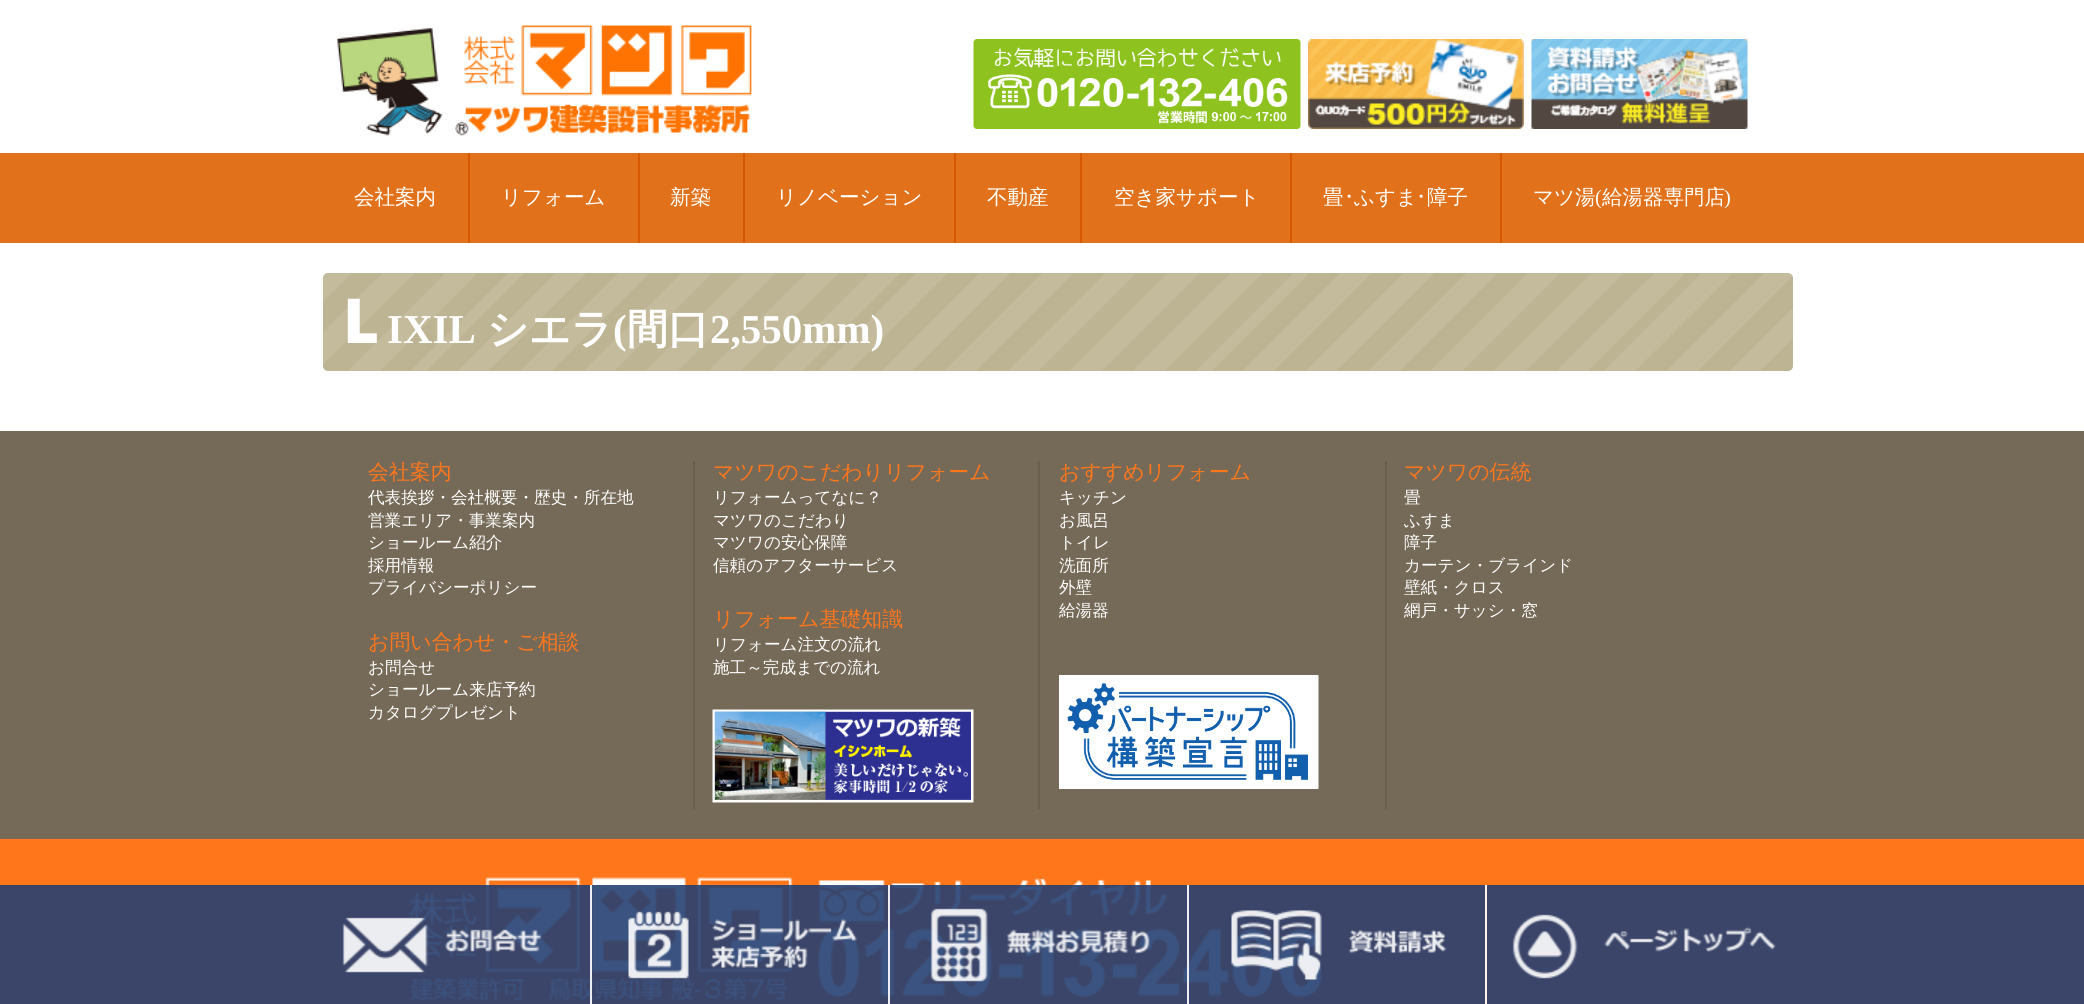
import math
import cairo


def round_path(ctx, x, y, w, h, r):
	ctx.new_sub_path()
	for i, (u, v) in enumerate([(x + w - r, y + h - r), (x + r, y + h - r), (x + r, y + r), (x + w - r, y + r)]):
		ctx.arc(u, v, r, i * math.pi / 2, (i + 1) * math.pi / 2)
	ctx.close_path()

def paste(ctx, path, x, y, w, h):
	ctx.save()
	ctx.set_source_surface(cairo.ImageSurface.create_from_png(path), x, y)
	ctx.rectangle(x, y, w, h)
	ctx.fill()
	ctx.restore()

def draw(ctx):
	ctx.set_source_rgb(1, 1, 1)
	ctx.paint()
	paste(ctx, 'media/1.png', 337, 25, 415, 111)
	paste(ctx, 'media/2.png', 973, 39, 328, 90)
	paste(ctx, 'media/3.png', 1308, 39, 216, 90)
	paste(ctx, 'media/4.png', 1531, 39, 217, 90)
	ctx.set_source_rgb(0.882, 0.447, 0.106)
	ctx.rectangle(0, 153, 2084, 90)
	ctx.fill()
	ctx.set_source_rgb(0.847, 0.341, 0)
	ctx.rectangle(468, 153, 2, 90)
	ctx.fill()
	ctx.select_font_face('WenQuanYi Zen Hei Medium')
	ctx.set_font_size(20.5)
	ctx.set_source_rgb(1, 1, 1)
	ctx.move_to(354, 204)
	ctx.show_text('会社案内')
	ctx.set_source_rgb(0.847, 0.341, 0)
	ctx.rectangle(638, 153, 2, 90)
	ctx.fill()
	ctx.set_source_rgb(1, 1, 1)
	ctx.move_to(501, 204)
	ctx.show_text('リフォーム')
	ctx.set_source_rgb(0.847, 0.341, 0)
	ctx.rectangle(743, 153, 2, 90)
	ctx.fill()
	ctx.set_source_rgb(1, 1, 1)
	ctx.move_to(670, 204)
	ctx.show_text('新築')
	ctx.set_source_rgb(0.847, 0.341, 0)
	ctx.rectangle(954, 153, 2, 90)
	ctx.fill()
	ctx.set_source_rgb(1, 1, 1)
	ctx.move_to(776, 204)
	ctx.show_text('リノベーション')
	ctx.set_source_rgb(0.847, 0.341, 0)
	ctx.rectangle(1080, 153, 2, 90)
	ctx.fill()
	ctx.set_source_rgb(1, 1, 1)
	ctx.move_to(987, 204)
	ctx.show_text('不動産')
	ctx.set_source_rgb(0.847, 0.341, 0)
	ctx.rectangle(1290, 153, 2, 90)
	ctx.fill()
	ctx.set_source_rgb(1, 1, 1)
	ctx.move_to(1114, 204)
	ctx.show_text('空き家サポート')
	ctx.set_source_rgb(0.847, 0.341, 0)
	ctx.rectangle(1500, 153, 2, 90)
	ctx.fill()
	ctx.set_source_rgb(1, 1, 1)
	ctx.move_to(1323, 204)
	ctx.show_text('畳')
	ctx.select_font_face('IPAPGothic')
	ctx.move_to(1344, 204)
	ctx.show_text('･')
	ctx.select_font_face('WenQuanYi Zen Hei Medium')
	ctx.move_to(1354, 204)
	ctx.show_text('ふすま')
	ctx.select_font_face('IPAPGothic')
	ctx.move_to(1416, 204)
	ctx.show_text('･')
	ctx.select_font_face('WenQuanYi Zen Hei Medium')
	ctx.move_to(1427, 204)
	ctx.show_text('障子')
	ctx.move_to(1533, 204)
	ctx.show_text('マツ湯')
	ctx.select_font_face('Liberation Serif')
	ctx.move_to(1595, 204)
	ctx.show_text('(')
	ctx.select_font_face('WenQuanYi Zen Hei Medium')
	ctx.move_to(1602, 204)
	ctx.show_text('給湯器専門店')
	ctx.select_font_face('Liberation Serif')
	ctx.move_to(1724, 204)
	ctx.show_text(')')
	gradient = cairo.LinearGradient(1449, 714, 664, -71)
	gradient.add_color_stop_rgba(0, 0.741, 0.706, 0.576, 1)
	gradient.add_color_stop_rgba(0.01, 0.741, 0.706, 0.576, 1)
	gradient.add_color_stop_rgba(0.01, 0.769, 0.733, 0.612, 1)
	gradient.add_color_stop_rgba(0.01, 0.769, 0.733, 0.612, 1)
	gradient.add_color_stop_rgba(0.01, 0.741, 0.706, 0.576, 1)
	gradient.add_color_stop_rgba(0.02, 0.741, 0.706, 0.576, 1)
	gradient.add_color_stop_rgba(0.02, 0.769, 0.733, 0.612, 1)
	gradient.add_color_stop_rgba(0.03, 0.769, 0.733, 0.612, 1)
	gradient.add_color_stop_rgba(0.03, 0.741, 0.706, 0.576, 1)
	gradient.add_color_stop_rgba(0.03, 0.741, 0.706, 0.576, 1)
	gradient.add_color_stop_rgba(0.03, 0.769, 0.733, 0.612, 1)
	gradient.add_color_stop_rgba(0.04, 0.769, 0.733, 0.612, 1)
	gradient.add_color_stop_rgba(0.04, 0.741, 0.706, 0.576, 1)
	gradient.add_color_stop_rgba(0.05, 0.741, 0.706, 0.576, 1)
	gradient.add_color_stop_rgba(0.05, 0.769, 0.733, 0.612, 1)
	gradient.add_color_stop_rgba(0.05, 0.769, 0.733, 0.612, 1)
	gradient.add_color_stop_rgba(0.05, 0.741, 0.706, 0.576, 1)
	gradient.add_color_stop_rgba(0.06, 0.741, 0.706, 0.576, 1)
	gradient.add_color_stop_rgba(0.06, 0.769, 0.733, 0.612, 1)
	gradient.add_color_stop_rgba(0.07, 0.769, 0.733, 0.612, 1)
	gradient.add_color_stop_rgba(0.07, 0.741, 0.706, 0.576, 1)
	gradient.add_color_stop_rgba(0.07, 0.741, 0.706, 0.576, 1)
	gradient.add_color_stop_rgba(0.07, 0.769, 0.733, 0.612, 1)
	gradient.add_color_stop_rgba(0.08, 0.769, 0.733, 0.612, 1)
	gradient.add_color_stop_rgba(0.08, 0.741, 0.706, 0.576, 1)
	gradient.add_color_stop_rgba(0.09, 0.741, 0.706, 0.576, 1)
	gradient.add_color_stop_rgba(0.09, 0.769, 0.733, 0.612, 1)
	gradient.add_color_stop_rgba(0.09, 0.769, 0.733, 0.612, 1)
	gradient.add_color_stop_rgba(0.09, 0.741, 0.706, 0.576, 1)
	gradient.add_color_stop_rgba(0.1, 0.741, 0.706, 0.576, 1)
	gradient.add_color_stop_rgba(0.1, 0.769, 0.733, 0.612, 1)
	gradient.add_color_stop_rgba(0.11, 0.769, 0.733, 0.612, 1)
	gradient.add_color_stop_rgba(0.11, 0.741, 0.706, 0.576, 1)
	gradient.add_color_stop_rgba(0.11, 0.741, 0.706, 0.576, 1)
	gradient.add_color_stop_rgba(0.11, 0.769, 0.733, 0.612, 1)
	gradient.add_color_stop_rgba(0.12, 0.769, 0.733, 0.612, 1)
	gradient.add_color_stop_rgba(0.12, 0.741, 0.706, 0.576, 1)
	gradient.add_color_stop_rgba(0.13, 0.741, 0.706, 0.576, 1)
	gradient.add_color_stop_rgba(0.13, 0.769, 0.733, 0.612, 1)
	gradient.add_color_stop_rgba(0.14, 0.769, 0.733, 0.612, 1)
	gradient.add_color_stop_rgba(0.14, 0.741, 0.706, 0.576, 1)
	gradient.add_color_stop_rgba(0.14, 0.741, 0.706, 0.576, 1)
	gradient.add_color_stop_rgba(0.14, 0.769, 0.733, 0.612, 1)
	gradient.add_color_stop_rgba(0.15, 0.769, 0.733, 0.612, 1)
	gradient.add_color_stop_rgba(0.15, 0.741, 0.706, 0.576, 1)
	gradient.add_color_stop_rgba(0.16, 0.741, 0.706, 0.576, 1)
	gradient.add_color_stop_rgba(0.16, 0.769, 0.733, 0.612, 1)
	gradient.add_color_stop_rgba(0.16, 0.769, 0.733, 0.612, 1)
	gradient.add_color_stop_rgba(0.16, 0.741, 0.706, 0.576, 1)
	gradient.add_color_stop_rgba(0.17, 0.741, 0.706, 0.576, 1)
	gradient.add_color_stop_rgba(0.17, 0.769, 0.733, 0.612, 1)
	gradient.add_color_stop_rgba(0.18, 0.769, 0.733, 0.612, 1)
	gradient.add_color_stop_rgba(0.18, 0.741, 0.706, 0.576, 1)
	gradient.add_color_stop_rgba(0.18, 0.741, 0.706, 0.576, 1)
	gradient.add_color_stop_rgba(0.18, 0.769, 0.733, 0.612, 1)
	gradient.add_color_stop_rgba(0.19, 0.769, 0.733, 0.612, 1)
	gradient.add_color_stop_rgba(0.19, 0.741, 0.706, 0.576, 1)
	gradient.add_color_stop_rgba(0.2, 0.741, 0.706, 0.576, 1)
	gradient.add_color_stop_rgba(0.2, 0.769, 0.733, 0.612, 1)
	gradient.add_color_stop_rgba(0.2, 0.769, 0.733, 0.612, 1)
	gradient.add_color_stop_rgba(0.2, 0.741, 0.706, 0.576, 1)
	gradient.add_color_stop_rgba(0.21, 0.741, 0.706, 0.576, 1)
	gradient.add_color_stop_rgba(0.21, 0.769, 0.733, 0.612, 1)
	gradient.add_color_stop_rgba(0.22, 0.769, 0.733, 0.612, 1)
	gradient.add_color_stop_rgba(0.22, 0.741, 0.706, 0.576, 1)
	gradient.add_color_stop_rgba(0.22, 0.741, 0.706, 0.576, 1)
	gradient.add_color_stop_rgba(0.22, 0.769, 0.733, 0.612, 1)
	gradient.add_color_stop_rgba(0.23, 0.769, 0.733, 0.612, 1)
	gradient.add_color_stop_rgba(0.23, 0.741, 0.706, 0.576, 1)
	gradient.add_color_stop_rgba(0.24, 0.741, 0.706, 0.576, 1)
	gradient.add_color_stop_rgba(0.24, 0.769, 0.733, 0.612, 1)
	gradient.add_color_stop_rgba(0.24, 0.769, 0.733, 0.612, 1)
	gradient.add_color_stop_rgba(0.24, 0.741, 0.706, 0.576, 1)
	gradient.add_color_stop_rgba(0.25, 0.741, 0.706, 0.576, 1)
	gradient.add_color_stop_rgba(0.25, 0.769, 0.733, 0.612, 1)
	gradient.add_color_stop_rgba(0.26, 0.769, 0.733, 0.612, 1)
	gradient.add_color_stop_rgba(0.26, 0.741, 0.706, 0.576, 1)
	gradient.add_color_stop_rgba(0.26, 0.741, 0.706, 0.576, 1)
	gradient.add_color_stop_rgba(0.26, 0.769, 0.733, 0.612, 1)
	gradient.add_color_stop_rgba(0.27, 0.769, 0.733, 0.612, 1)
	gradient.add_color_stop_rgba(0.27, 0.741, 0.706, 0.576, 1)
	gradient.add_color_stop_rgba(0.28, 0.741, 0.706, 0.576, 1)
	gradient.add_color_stop_rgba(0.28, 0.769, 0.733, 0.612, 1)
	gradient.add_color_stop_rgba(0.28, 0.769, 0.733, 0.612, 1)
	gradient.add_color_stop_rgba(0.28, 0.741, 0.706, 0.576, 1)
	gradient.add_color_stop_rgba(0.29, 0.741, 0.706, 0.576, 1)
	gradient.add_color_stop_rgba(0.29, 0.769, 0.733, 0.612, 1)
	gradient.add_color_stop_rgba(0.3, 0.769, 0.733, 0.612, 1)
	gradient.add_color_stop_rgba(0.3, 0.741, 0.706, 0.576, 1)
	gradient.add_color_stop_rgba(0.3, 0.741, 0.706, 0.576, 1)
	gradient.add_color_stop_rgba(0.3, 0.769, 0.733, 0.612, 1)
	gradient.add_color_stop_rgba(0.31, 0.769, 0.733, 0.612, 1)
	gradient.add_color_stop_rgba(0.31, 0.741, 0.706, 0.576, 1)
	gradient.add_color_stop_rgba(0.32, 0.741, 0.706, 0.576, 1)
	gradient.add_color_stop_rgba(0.32, 0.769, 0.733, 0.612, 1)
	gradient.add_color_stop_rgba(0.32, 0.769, 0.733, 0.612, 1)
	gradient.add_color_stop_rgba(0.32, 0.741, 0.706, 0.576, 1)
	gradient.add_color_stop_rgba(0.33, 0.741, 0.706, 0.576, 1)
	gradient.add_color_stop_rgba(0.33, 0.769, 0.733, 0.612, 1)
	gradient.add_color_stop_rgba(0.34, 0.769, 0.733, 0.612, 1)
	gradient.add_color_stop_rgba(0.34, 0.741, 0.706, 0.576, 1)
	gradient.add_color_stop_rgba(0.34, 0.741, 0.706, 0.576, 1)
	gradient.add_color_stop_rgba(0.34, 0.769, 0.733, 0.612, 1)
	gradient.add_color_stop_rgba(0.35, 0.769, 0.733, 0.612, 1)
	gradient.add_color_stop_rgba(0.35, 0.741, 0.706, 0.576, 1)
	gradient.add_color_stop_rgba(0.36, 0.741, 0.706, 0.576, 1)
	gradient.add_color_stop_rgba(0.36, 0.769, 0.733, 0.612, 1)
	gradient.add_color_stop_rgba(0.36, 0.769, 0.733, 0.612, 1)
	gradient.add_color_stop_rgba(0.36, 0.741, 0.706, 0.576, 1)
	gradient.add_color_stop_rgba(0.37, 0.741, 0.706, 0.576, 1)
	gradient.add_color_stop_rgba(0.37, 0.769, 0.733, 0.612, 1)
	gradient.add_color_stop_rgba(0.38, 0.769, 0.733, 0.612, 1)
	gradient.add_color_stop_rgba(0.38, 0.741, 0.706, 0.576, 1)
	gradient.add_color_stop_rgba(0.39, 0.741, 0.706, 0.576, 1)
	gradient.add_color_stop_rgba(0.39, 0.769, 0.733, 0.612, 1)
	gradient.add_color_stop_rgba(0.39, 0.769, 0.733, 0.612, 1)
	gradient.add_color_stop_rgba(0.39, 0.741, 0.706, 0.576, 1)
	gradient.add_color_stop_rgba(0.4, 0.741, 0.706, 0.576, 1)
	gradient.add_color_stop_rgba(0.4, 0.769, 0.733, 0.612, 1)
	gradient.add_color_stop_rgba(0.41, 0.769, 0.733, 0.612, 1)
	gradient.add_color_stop_rgba(0.41, 0.741, 0.706, 0.576, 1)
	gradient.add_color_stop_rgba(0.41, 0.741, 0.706, 0.576, 1)
	gradient.add_color_stop_rgba(0.41, 0.769, 0.733, 0.612, 1)
	gradient.add_color_stop_rgba(0.42, 0.769, 0.733, 0.612, 1)
	gradient.add_color_stop_rgba(0.42, 0.741, 0.706, 0.576, 1)
	gradient.add_color_stop_rgba(0.43, 0.741, 0.706, 0.576, 1)
	gradient.add_color_stop_rgba(0.43, 0.769, 0.733, 0.612, 1)
	gradient.add_color_stop_rgba(0.43, 0.769, 0.733, 0.612, 1)
	gradient.add_color_stop_rgba(0.43, 0.741, 0.706, 0.576, 1)
	gradient.add_color_stop_rgba(0.44, 0.741, 0.706, 0.576, 1)
	gradient.add_color_stop_rgba(0.44, 0.769, 0.733, 0.612, 1)
	gradient.add_color_stop_rgba(0.45, 0.769, 0.733, 0.612, 1)
	gradient.add_color_stop_rgba(0.45, 0.741, 0.706, 0.576, 1)
	gradient.add_color_stop_rgba(0.45, 0.741, 0.706, 0.576, 1)
	gradient.add_color_stop_rgba(0.45, 0.769, 0.733, 0.612, 1)
	gradient.add_color_stop_rgba(0.46, 0.769, 0.733, 0.612, 1)
	gradient.add_color_stop_rgba(0.46, 0.741, 0.706, 0.576, 1)
	gradient.add_color_stop_rgba(0.47, 0.741, 0.706, 0.576, 1)
	gradient.add_color_stop_rgba(0.47, 0.769, 0.733, 0.612, 1)
	gradient.add_color_stop_rgba(0.47, 0.769, 0.733, 0.612, 1)
	gradient.add_color_stop_rgba(0.47, 0.741, 0.706, 0.576, 1)
	gradient.add_color_stop_rgba(0.48, 0.741, 0.706, 0.576, 1)
	gradient.add_color_stop_rgba(0.48, 0.769, 0.733, 0.612, 1)
	gradient.add_color_stop_rgba(0.49, 0.769, 0.733, 0.612, 1)
	gradient.add_color_stop_rgba(0.49, 0.741, 0.706, 0.576, 1)
	gradient.add_color_stop_rgba(0.49, 0.741, 0.706, 0.576, 1)
	gradient.add_color_stop_rgba(0.49, 0.769, 0.733, 0.612, 1)
	gradient.add_color_stop_rgba(0.5, 0.769, 0.733, 0.612, 1)
	gradient.add_color_stop_rgba(0.5, 0.741, 0.706, 0.576, 1)
	gradient.add_color_stop_rgba(0.51, 0.741, 0.706, 0.576, 1)
	gradient.add_color_stop_rgba(0.51, 0.769, 0.733, 0.612, 1)
	gradient.add_color_stop_rgba(0.51, 0.769, 0.733, 0.612, 1)
	gradient.add_color_stop_rgba(0.51, 0.741, 0.706, 0.576, 1)
	gradient.add_color_stop_rgba(0.52, 0.741, 0.706, 0.576, 1)
	gradient.add_color_stop_rgba(0.52, 0.769, 0.733, 0.612, 1)
	gradient.add_color_stop_rgba(0.53, 0.769, 0.733, 0.612, 1)
	gradient.add_color_stop_rgba(0.53, 0.741, 0.706, 0.576, 1)
	gradient.add_color_stop_rgba(0.53, 0.741, 0.706, 0.576, 1)
	gradient.add_color_stop_rgba(0.53, 0.769, 0.733, 0.612, 1)
	gradient.add_color_stop_rgba(0.54, 0.769, 0.733, 0.612, 1)
	gradient.add_color_stop_rgba(0.54, 0.741, 0.706, 0.576, 1)
	gradient.add_color_stop_rgba(0.55, 0.741, 0.706, 0.576, 1)
	gradient.add_color_stop_rgba(0.55, 0.769, 0.733, 0.612, 1)
	gradient.add_color_stop_rgba(0.55, 0.769, 0.733, 0.612, 1)
	gradient.add_color_stop_rgba(0.55, 0.741, 0.706, 0.576, 1)
	gradient.add_color_stop_rgba(0.56, 0.741, 0.706, 0.576, 1)
	gradient.add_color_stop_rgba(0.56, 0.769, 0.733, 0.612, 1)
	gradient.add_color_stop_rgba(0.57, 0.769, 0.733, 0.612, 1)
	gradient.add_color_stop_rgba(0.57, 0.741, 0.706, 0.576, 1)
	gradient.add_color_stop_rgba(0.57, 0.741, 0.706, 0.576, 1)
	gradient.add_color_stop_rgba(0.57, 0.769, 0.733, 0.612, 1)
	gradient.add_color_stop_rgba(0.58, 0.769, 0.733, 0.612, 1)
	gradient.add_color_stop_rgba(0.58, 0.741, 0.706, 0.576, 1)
	gradient.add_color_stop_rgba(0.59, 0.741, 0.706, 0.576, 1)
	gradient.add_color_stop_rgba(0.59, 0.769, 0.733, 0.612, 1)
	gradient.add_color_stop_rgba(0.59, 0.769, 0.733, 0.612, 1)
	gradient.add_color_stop_rgba(0.59, 0.741, 0.706, 0.576, 1)
	gradient.add_color_stop_rgba(0.6, 0.741, 0.706, 0.576, 1)
	gradient.add_color_stop_rgba(0.6, 0.769, 0.733, 0.612, 1)
	gradient.add_color_stop_rgba(0.61, 0.769, 0.733, 0.612, 1)
	gradient.add_color_stop_rgba(0.61, 0.741, 0.706, 0.576, 1)
	gradient.add_color_stop_rgba(0.61, 0.741, 0.706, 0.576, 1)
	gradient.add_color_stop_rgba(0.61, 0.769, 0.733, 0.612, 1)
	gradient.add_color_stop_rgba(0.62, 0.769, 0.733, 0.612, 1)
	gradient.add_color_stop_rgba(0.62, 0.741, 0.706, 0.576, 1)
	gradient.add_color_stop_rgba(0.63, 0.741, 0.706, 0.576, 1)
	gradient.add_color_stop_rgba(0.63, 0.769, 0.733, 0.612, 1)
	gradient.add_color_stop_rgba(0.64, 0.769, 0.733, 0.612, 1)
	gradient.add_color_stop_rgba(0.64, 0.741, 0.706, 0.576, 1)
	gradient.add_color_stop_rgba(0.64, 0.741, 0.706, 0.576, 1)
	gradient.add_color_stop_rgba(0.64, 0.769, 0.733, 0.612, 1)
	gradient.add_color_stop_rgba(0.65, 0.769, 0.733, 0.612, 1)
	gradient.add_color_stop_rgba(0.65, 0.741, 0.706, 0.576, 1)
	gradient.add_color_stop_rgba(0.66, 0.741, 0.706, 0.576, 1)
	gradient.add_color_stop_rgba(0.66, 0.769, 0.733, 0.612, 1)
	gradient.add_color_stop_rgba(0.66, 0.769, 0.733, 0.612, 1)
	gradient.add_color_stop_rgba(0.66, 0.741, 0.706, 0.576, 1)
	gradient.add_color_stop_rgba(0.67, 0.741, 0.706, 0.576, 1)
	gradient.add_color_stop_rgba(0.67, 0.769, 0.733, 0.612, 1)
	gradient.add_color_stop_rgba(0.68, 0.769, 0.733, 0.612, 1)
	gradient.add_color_stop_rgba(0.68, 0.741, 0.706, 0.576, 1)
	gradient.add_color_stop_rgba(0.68, 0.741, 0.706, 0.576, 1)
	gradient.add_color_stop_rgba(0.68, 0.769, 0.733, 0.612, 1)
	gradient.add_color_stop_rgba(0.69, 0.769, 0.733, 0.612, 1)
	gradient.add_color_stop_rgba(0.69, 0.741, 0.706, 0.576, 1)
	gradient.add_color_stop_rgba(0.7, 0.741, 0.706, 0.576, 1)
	gradient.add_color_stop_rgba(0.7, 0.769, 0.733, 0.612, 1)
	gradient.add_color_stop_rgba(0.7, 0.769, 0.733, 0.612, 1)
	gradient.add_color_stop_rgba(0.7, 0.741, 0.706, 0.576, 1)
	gradient.add_color_stop_rgba(0.71, 0.741, 0.706, 0.576, 1)
	gradient.add_color_stop_rgba(0.71, 0.769, 0.733, 0.612, 1)
	gradient.add_color_stop_rgba(0.72, 0.769, 0.733, 0.612, 1)
	gradient.add_color_stop_rgba(0.72, 0.741, 0.706, 0.576, 1)
	gradient.add_color_stop_rgba(0.72, 0.741, 0.706, 0.576, 1)
	gradient.add_color_stop_rgba(0.72, 0.769, 0.733, 0.612, 1)
	gradient.add_color_stop_rgba(0.73, 0.769, 0.733, 0.612, 1)
	gradient.add_color_stop_rgba(0.73, 0.741, 0.706, 0.576, 1)
	gradient.add_color_stop_rgba(0.74, 0.741, 0.706, 0.576, 1)
	gradient.add_color_stop_rgba(0.74, 0.769, 0.733, 0.612, 1)
	gradient.add_color_stop_rgba(0.74, 0.769, 0.733, 0.612, 1)
	gradient.add_color_stop_rgba(0.74, 0.741, 0.706, 0.576, 1)
	gradient.add_color_stop_rgba(0.75, 0.741, 0.706, 0.576, 1)
	gradient.add_color_stop_rgba(0.75, 0.769, 0.733, 0.612, 1)
	gradient.add_color_stop_rgba(0.76, 0.769, 0.733, 0.612, 1)
	gradient.add_color_stop_rgba(0.76, 0.741, 0.706, 0.576, 1)
	gradient.add_color_stop_rgba(0.76, 0.741, 0.706, 0.576, 1)
	gradient.add_color_stop_rgba(0.76, 0.769, 0.733, 0.612, 1)
	gradient.add_color_stop_rgba(0.77, 0.769, 0.733, 0.612, 1)
	gradient.add_color_stop_rgba(0.77, 0.741, 0.706, 0.576, 1)
	gradient.add_color_stop_rgba(0.78, 0.741, 0.706, 0.576, 1)
	gradient.add_color_stop_rgba(0.78, 0.769, 0.733, 0.612, 1)
	gradient.add_color_stop_rgba(0.78, 0.769, 0.733, 0.612, 1)
	gradient.add_color_stop_rgba(0.78, 0.741, 0.706, 0.576, 1)
	gradient.add_color_stop_rgba(0.79, 0.741, 0.706, 0.576, 1)
	gradient.add_color_stop_rgba(0.79, 0.769, 0.733, 0.612, 1)
	gradient.add_color_stop_rgba(0.8, 0.769, 0.733, 0.612, 1)
	gradient.add_color_stop_rgba(0.8, 0.741, 0.706, 0.576, 1)
	gradient.add_color_stop_rgba(0.8, 0.741, 0.706, 0.576, 1)
	gradient.add_color_stop_rgba(0.8, 0.769, 0.733, 0.612, 1)
	gradient.add_color_stop_rgba(0.81, 0.769, 0.733, 0.612, 1)
	gradient.add_color_stop_rgba(0.81, 0.741, 0.706, 0.576, 1)
	gradient.add_color_stop_rgba(0.82, 0.741, 0.706, 0.576, 1)
	gradient.add_color_stop_rgba(0.82, 0.769, 0.733, 0.612, 1)
	gradient.add_color_stop_rgba(0.82, 0.769, 0.733, 0.612, 1)
	gradient.add_color_stop_rgba(0.82, 0.741, 0.706, 0.576, 1)
	gradient.add_color_stop_rgba(0.83, 0.741, 0.706, 0.576, 1)
	gradient.add_color_stop_rgba(0.83, 0.769, 0.733, 0.612, 1)
	gradient.add_color_stop_rgba(0.84, 0.769, 0.733, 0.612, 1)
	gradient.add_color_stop_rgba(0.84, 0.741, 0.706, 0.576, 1)
	gradient.add_color_stop_rgba(0.84, 0.741, 0.706, 0.576, 1)
	gradient.add_color_stop_rgba(0.84, 0.769, 0.733, 0.612, 1)
	gradient.add_color_stop_rgba(0.85, 0.769, 0.733, 0.612, 1)
	gradient.add_color_stop_rgba(0.85, 0.741, 0.706, 0.576, 1)
	gradient.add_color_stop_rgba(0.86, 0.741, 0.706, 0.576, 1)
	gradient.add_color_stop_rgba(0.86, 0.769, 0.733, 0.612, 1)
	gradient.add_color_stop_rgba(0.86, 0.769, 0.733, 0.612, 1)
	gradient.add_color_stop_rgba(0.86, 0.741, 0.706, 0.576, 1)
	gradient.add_color_stop_rgba(0.87, 0.741, 0.706, 0.576, 1)
	gradient.add_color_stop_rgba(0.87, 0.769, 0.733, 0.612, 1)
	gradient.add_color_stop_rgba(0.88, 0.769, 0.733, 0.612, 1)
	gradient.add_color_stop_rgba(0.88, 0.741, 0.706, 0.576, 1)
	gradient.add_color_stop_rgba(0.89, 0.741, 0.706, 0.576, 1)
	gradient.add_color_stop_rgba(0.89, 0.769, 0.733, 0.612, 1)
	gradient.add_color_stop_rgba(0.89, 0.769, 0.733, 0.612, 1)
	gradient.add_color_stop_rgba(0.89, 0.741, 0.706, 0.576, 1)
	gradient.add_color_stop_rgba(0.9, 0.741, 0.706, 0.576, 1)
	gradient.add_color_stop_rgba(0.9, 0.769, 0.733, 0.612, 1)
	gradient.add_color_stop_rgba(0.91, 0.769, 0.733, 0.612, 1)
	gradient.add_color_stop_rgba(0.91, 0.741, 0.706, 0.576, 1)
	gradient.add_color_stop_rgba(0.91, 0.741, 0.706, 0.576, 1)
	gradient.add_color_stop_rgba(0.91, 0.769, 0.733, 0.612, 1)
	gradient.add_color_stop_rgba(0.92, 0.769, 0.733, 0.612, 1)
	gradient.add_color_stop_rgba(0.92, 0.741, 0.706, 0.576, 1)
	gradient.add_color_stop_rgba(0.93, 0.741, 0.706, 0.576, 1)
	gradient.add_color_stop_rgba(0.93, 0.769, 0.733, 0.612, 1)
	gradient.add_color_stop_rgba(0.93, 0.769, 0.733, 0.612, 1)
	gradient.add_color_stop_rgba(0.93, 0.741, 0.706, 0.576, 1)
	gradient.add_color_stop_rgba(0.94, 0.741, 0.706, 0.576, 1)
	gradient.add_color_stop_rgba(0.94, 0.769, 0.733, 0.612, 1)
	gradient.add_color_stop_rgba(0.95, 0.769, 0.733, 0.612, 1)
	gradient.add_color_stop_rgba(0.95, 0.741, 0.706, 0.576, 1)
	gradient.add_color_stop_rgba(0.95, 0.741, 0.706, 0.576, 1)
	gradient.add_color_stop_rgba(0.95, 0.769, 0.733, 0.612, 1)
	gradient.add_color_stop_rgba(0.96, 0.769, 0.733, 0.612, 1)
	gradient.add_color_stop_rgba(0.96, 0.741, 0.706, 0.576, 1)
	gradient.add_color_stop_rgba(0.97, 0.741, 0.706, 0.576, 1)
	gradient.add_color_stop_rgba(0.97, 0.769, 0.733, 0.612, 1)
	gradient.add_color_stop_rgba(0.97, 0.769, 0.733, 0.612, 1)
	gradient.add_color_stop_rgba(0.97, 0.741, 0.706, 0.576, 1)
	gradient.add_color_stop_rgba(0.98, 0.741, 0.706, 0.576, 1)
	gradient.add_color_stop_rgba(0.98, 0.769, 0.733, 0.612, 1)
	gradient.add_color_stop_rgba(0.99, 0.769, 0.733, 0.612, 1)
	gradient.add_color_stop_rgba(0.99, 0.741, 0.706, 0.576, 1)
	gradient.add_color_stop_rgba(0.99, 0.741, 0.706, 0.576, 1)
	gradient.add_color_stop_rgba(0.99, 0.769, 0.733, 0.612, 1)
	gradient.add_color_stop_rgba(1, 0.769, 0.733, 0.612, 1)
	ctx.set_source(gradient)
	round_path(ctx, 323, 273, 1470, 98, 5)
	ctx.fill()
	ctx.select_font_face('Noto Sans Black')
	ctx.set_font_size(62)
	ctx.set_source_rgb(1, 1, 1)
	ctx.move_to(343, 343)
	ctx.show_text('L')
	ctx.select_font_face('Liberation Serif', cairo.FONT_SLANT_NORMAL, cairo.FONT_WEIGHT_BOLD)
	ctx.set_font_size(41)
	ctx.move_to(387, 343)
	ctx.show_text('IXIL')
	ctx.select_font_face('WenQuanYi Zen Hei', cairo.FONT_SLANT_NORMAL, cairo.FONT_WEIGHT_BOLD)
	ctx.move_to(487, 343)
	ctx.show_text('シエラ')
	ctx.select_font_face('Liberation Serif', cairo.FONT_SLANT_NORMAL, cairo.FONT_WEIGHT_BOLD)
	ctx.move_to(613, 343)
	ctx.show_text('(')
	ctx.select_font_face('WenQuanYi Zen Hei', cairo.FONT_SLANT_NORMAL, cairo.FONT_WEIGHT_BOLD)
	ctx.move_to(627, 343)
	ctx.show_text('間口')
	ctx.select_font_face('Liberation Serif', cairo.FONT_SLANT_NORMAL, cairo.FONT_WEIGHT_BOLD)
	ctx.move_to(710, 343)
	ctx.show_text('2,550mm)')
	ctx.set_source_rgb(0.459, 0.416, 0.341)
	ctx.rectangle(0, 431, 2084, 408)
	ctx.fill()
	ctx.set_source_rgb(0.412, 0.373, 0.306)
	ctx.rectangle(693, 461, 2, 348)
	ctx.fill()
	ctx.select_font_face('WenQuanYi Zen Hei Medium')
	ctx.set_font_size(20.9)
	ctx.set_source_rgb(1, 0.463, 0.106)
	ctx.move_to(368, 479)
	ctx.show_text('会社案内')
	ctx.set_font_size(16.6)
	ctx.set_source_rgb(1, 1, 1)
	for x, y, s in [
		(368, 503, '代表挨拶・会社概要・歴史・所在地'),
		(368, 526, '営業エリア・事業案内'),
		(368, 548, 'ショールーム紹介'),
		(368, 571, '採用情報'),
		(368, 593, 'プライバシーポリシー'),
	]:
		ctx.move_to(x, y)
		ctx.show_text(s)
	ctx.set_font_size(20.9)
	ctx.set_source_rgb(1, 0.463, 0.106)
	ctx.move_to(368, 649)
	ctx.show_text('お問い合わせ・ご相談')
	ctx.set_font_size(16.6)
	ctx.set_source_rgb(1, 1, 1)
	for x, y, s in [
		(368, 673, 'お問合せ'),
		(368, 695, 'ショールーム来店予約'),
		(368, 718, 'カタログプレゼント'),
	]:
		ctx.move_to(x, y)
		ctx.show_text(s)
	ctx.set_source_rgb(0.412, 0.373, 0.306)
	ctx.rectangle(1038, 461, 2, 348)
	ctx.fill()
	ctx.set_font_size(20.9)
	ctx.set_source_rgb(1, 0.463, 0.106)
	ctx.move_to(713, 479)
	ctx.show_text('マツワのこだわりリフォーム')
	ctx.set_font_size(16.6)
	ctx.set_source_rgb(1, 1, 1)
	for x, y, s in [
		(713, 503, 'リフォームってなに？'),
		(713, 526, 'マツワのこだわり'),
		(713, 548, 'マツワの安心保障'),
		(713, 571, '信頼のアフターサービス'),
	]:
		ctx.move_to(x, y)
		ctx.show_text(s)
	ctx.set_font_size(20.9)
	ctx.set_source_rgb(1, 0.463, 0.106)
	ctx.move_to(713, 626)
	ctx.show_text('リフォーム基礎知識')
	ctx.set_font_size(16.6)
	ctx.set_source_rgb(1, 1, 1)
	ctx.move_to(713, 650)
	ctx.show_text('リフォーム注文の流れ')
	ctx.move_to(713, 673)
	ctx.show_text('施工～完成までの流れ')
	paste(ctx, 'media/5.png', 712, 709, 262, 94)
	ctx.set_source_rgb(0.412, 0.373, 0.306)
	ctx.rectangle(1385, 461, 2, 348)
	ctx.fill()
	ctx.set_font_size(20.9)
	ctx.set_source_rgb(1, 0.463, 0.106)
	ctx.move_to(1059, 479)
	ctx.show_text('おすすめリフォーム')
	ctx.set_font_size(16.6)
	ctx.set_source_rgb(1, 1, 1)
	for x, y, s in [
		(1059, 503, 'キッチン'),
		(1059, 526, 'お風呂'),
		(1059, 548, 'トイレ'),
		(1059, 571, '洗面所'),
		(1059, 593, '外壁'),
		(1059, 616, '給湯器'),
	]:
		ctx.move_to(x, y)
		ctx.show_text(s)
	paste(ctx, 'media/6.png', 1059, 675, 260, 114)
	ctx.set_font_size(20.9)
	ctx.set_source_rgb(1, 0.463, 0.106)
	ctx.move_to(1404, 479)
	ctx.show_text('マツワの伝統')
	ctx.set_font_size(16.6)
	ctx.set_source_rgb(1, 1, 1)
	for x, y, s in [
		(1404, 503, '畳'),
		(1404, 526, 'ふすま'),
		(1404, 548, '障子'),
		(1404, 571, 'カーテン・ブラインド'),
		(1404, 593, '壁紙・クロス'),
		(1404, 616, '網戸・サッシ・窓'),
	]:
		ctx.move_to(x, y)
		ctx.show_text(s)
	ctx.set_source_rgb(1, 0.463, 0.106)
	ctx.rectangle(0, 839, 2084, 46)
	ctx.fill()
	ctx.set_source_rgb(0.231, 0.271, 0.412)
	ctx.rectangle(0, 885, 2084, 119)
	ctx.fill()
	paste(ctx, 'media/7.png', 409, 877, 913, 124)
	ctx.set_source_rgba(1, 1, 1, 0.9)
	ctx.rectangle(590, 885, 2, 119)
	ctx.fill()
	paste(ctx, 'media/8.png', 342, 917, 200, 56)
	ctx.rectangle(888, 885, 2, 119)
	ctx.fill()
	paste(ctx, 'media/9.png', 628, 911, 229, 68)
	ctx.rectangle(1187, 885, 2, 119)
	ctx.fill()
	paste(ctx, 'media/10.png', 930, 908, 220, 74)
	ctx.set_source_rgb(1, 0.945, 0.91)
	ctx.rectangle(1485, 885, 2, 119)
	ctx.fill()
	paste(ctx, 'media/11.png', 1231, 910, 216, 70)
	paste(ctx, 'media/12.png', 1512, 914, 264, 65)


surface = cairo.ImageSurface(cairo.FORMAT_RGB24, 2084, 1004)
ctx = cairo.Context(surface)
options = cairo.FontOptions()
options.set_hint_metrics(cairo.HINT_METRICS_OFF)
options.set_hint_style(cairo.HINT_STYLE_NONE)
ctx.set_font_options(options)
ctx.set_miter_limit(4)
draw(ctx)
surface.write_to_png('image.png')
